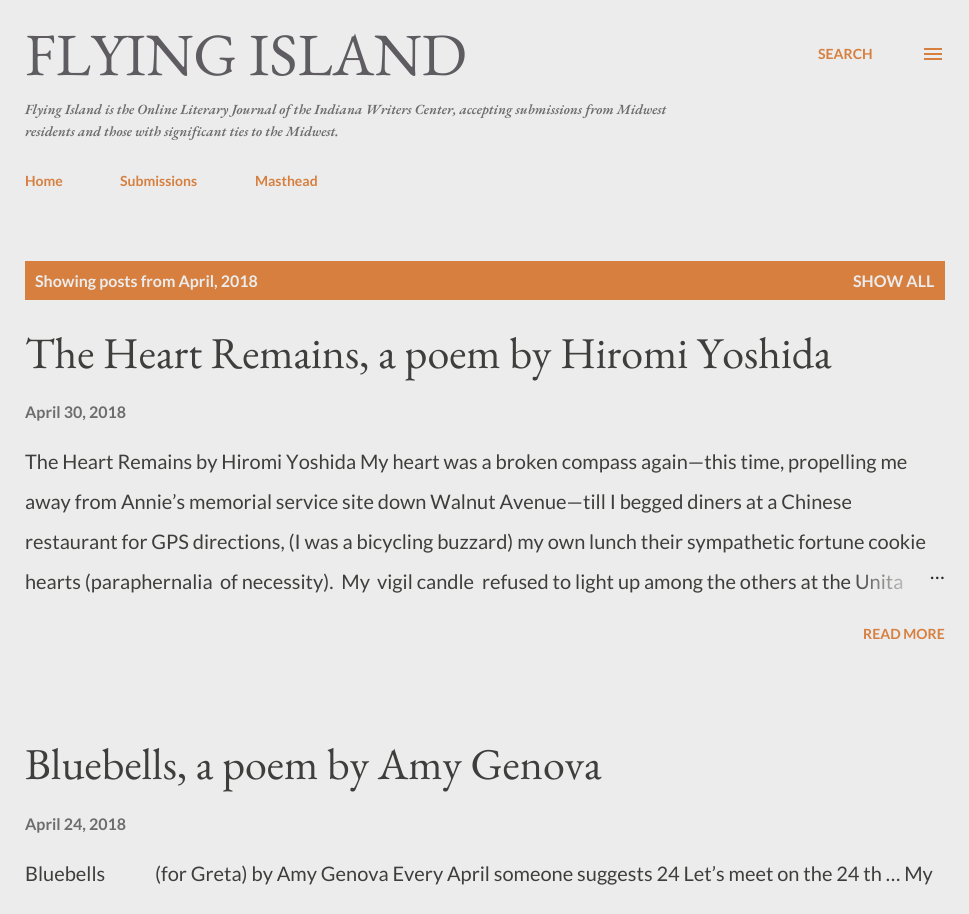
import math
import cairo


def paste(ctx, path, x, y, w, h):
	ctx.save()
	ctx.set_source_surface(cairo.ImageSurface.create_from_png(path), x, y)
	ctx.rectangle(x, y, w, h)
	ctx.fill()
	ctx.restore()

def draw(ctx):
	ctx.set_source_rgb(0.925, 0.925, 0.925)
	ctx.paint()
	ctx.select_font_face('EB Garamond')
	ctx.set_font_size(60)
	ctx.set_source_rgb(0.369, 0.361, 0.38)
	ctx.move_to(25, 75)
	ctx.show_text('FLYING ISLAND')
	ctx.select_font_face('EB Garamond SemiBold', cairo.FONT_SLANT_ITALIC)
	ctx.set_font_size(14)
	ctx.set_source_rgb(0.427, 0.427, 0.427)
	ctx.move_to(25, 114)
	ctx.show_text('Flying Island is the Online Literary Journal of the Indiana Writers Center, accepting submissions from Midwest')
	ctx.move_to(25, 136)
	ctx.show_text('residents and those with significant ties to the Midwest.')
	ctx.select_font_face('Lato', cairo.FONT_SLANT_NORMAL, cairo.FONT_WEIGHT_BOLD)
	ctx.set_source_rgb(0.839, 0.498, 0.247)
	ctx.move_to(818, 59)
	ctx.show_text('SEARCH')
	paste(ctx, 'media/1.png', 924, 48, 18, 12)
	for x, y, s in [
		(25, 186, 'Home'),
		(120, 186, 'Submissions'),
		(255, 186, 'Masthead'),
	]:
		ctx.move_to(x, y)
		ctx.show_text(s)
	ctx.rectangle(25, 261, 920, 39)
	ctx.fill()
	ctx.set_font_size(16)
	ctx.set_source_rgb(0.925, 0.925, 0.925)
	ctx.move_to(35, 287)
	ctx.show_text('Showing posts from April, 2018')
	ctx.move_to(853, 287)
	ctx.show_text('SHOW ALL')
	ctx.select_font_face('EB Garamond')
	ctx.set_font_size(44)
	ctx.set_source_rgb(0.243, 0.247, 0.235)
	ctx.move_to(25, 368)
	ctx.show_text('The Heart Remains, a poem by Hiromi Yoshida')
	ctx.select_font_face('Lato', cairo.FONT_SLANT_NORMAL, cairo.FONT_WEIGHT_BOLD)
	ctx.set_font_size(16)
	ctx.set_source_rgb(0.427, 0.427, 0.427)
	ctx.move_to(25, 418)
	ctx.show_text('April 30, 2018')
	ctx.save()
	ctx.rectangle(25, 441, 920, 160)
	ctx.clip()
	ctx.select_font_face('Lato')
	ctx.set_font_size(20)
	ctx.set_source_rgb(0.243, 0.247, 0.235)
	ctx.move_to(25, 469)
	ctx.show_text('The Heart Remains')
	ctx.restore()
	ctx.select_font_face('Lato')
	ctx.set_font_size(20)
	ctx.set_source_rgb(0.243, 0.247, 0.235)
	for x, y, s in [
		(196, 469, 'by Hiromi Yoshida My heart was a broken compass again—this time, propelling me'),
		(25, 509, 'away from Annie’s memorial service site down Walnut Avenue—till I begged diners at a Chinese'),
		(25, 549, 'restaurant for GPS directions, (I was a bicycling buzzard) my own lunch their sympathetic fortune cookie'),
		(25, 589, 'hearts (paraphernalia'),
		(220, 589, 'of necessity).  My'),
		(377, 589, 'vigil candle'),
		(482, 589, 'refused to light up among the others at the Unita'),
	]:
		ctx.move_to(x, y)
		ctx.show_text(s)
	gradient = cairo.LinearGradient(945, 581, 849, 581)
	gradient.add_color_stop_rgba(0, 0.925, 0.925, 0.925, 1)
	gradient.add_color_stop_rgba(0.2, 0.925, 0.925, 0.925, 1)
	gradient.add_color_stop_rgba(1, 0.925, 0.925, 0.925, 0)
	ctx.set_source(gradient)
	ctx.rectangle(856, 574, 47, 16)
	ctx.fill()
	ctx.set_source_rgb(0.161, 0.161, 0.161)
	ctx.move_to(930, 579)
	ctx.show_text('…')
	ctx.select_font_face('Lato', cairo.FONT_SLANT_NORMAL, cairo.FONT_WEIGHT_BOLD)
	ctx.set_font_size(14)
	ctx.set_source_rgb(0.839, 0.498, 0.247)
	ctx.move_to(863, 639)
	ctx.show_text('READ MORE')
	ctx.select_font_face('EB Garamond')
	ctx.set_font_size(44)
	ctx.set_source_rgb(0.243, 0.247, 0.235)
	ctx.move_to(25, 779)
	ctx.show_text('Bluebells, a poem by Amy Genova')
	ctx.select_font_face('Lato', cairo.FONT_SLANT_NORMAL, cairo.FONT_WEIGHT_BOLD)
	ctx.set_font_size(16)
	ctx.set_source_rgb(0.427, 0.427, 0.427)
	ctx.move_to(25, 830)
	ctx.show_text('April 24, 2018')
	ctx.select_font_face('Lato')
	ctx.set_font_size(20)
	ctx.set_source_rgb(0.243, 0.247, 0.235)
	ctx.move_to(25, 881)
	ctx.show_text('Bluebells')
	ctx.move_to(155, 881)
	ctx.show_text('(for Greta) by Amy Genova Every April someone suggests 24 Let’s meet on the 24 th … My')


surface = cairo.ImageSurface(cairo.FORMAT_RGB24, 969, 914)
ctx = cairo.Context(surface)
options = cairo.FontOptions()
options.set_hint_metrics(cairo.HINT_METRICS_OFF)
options.set_hint_style(cairo.HINT_STYLE_NONE)
ctx.set_font_options(options)
ctx.set_miter_limit(4)
draw(ctx)
surface.write_to_png('image.png')
